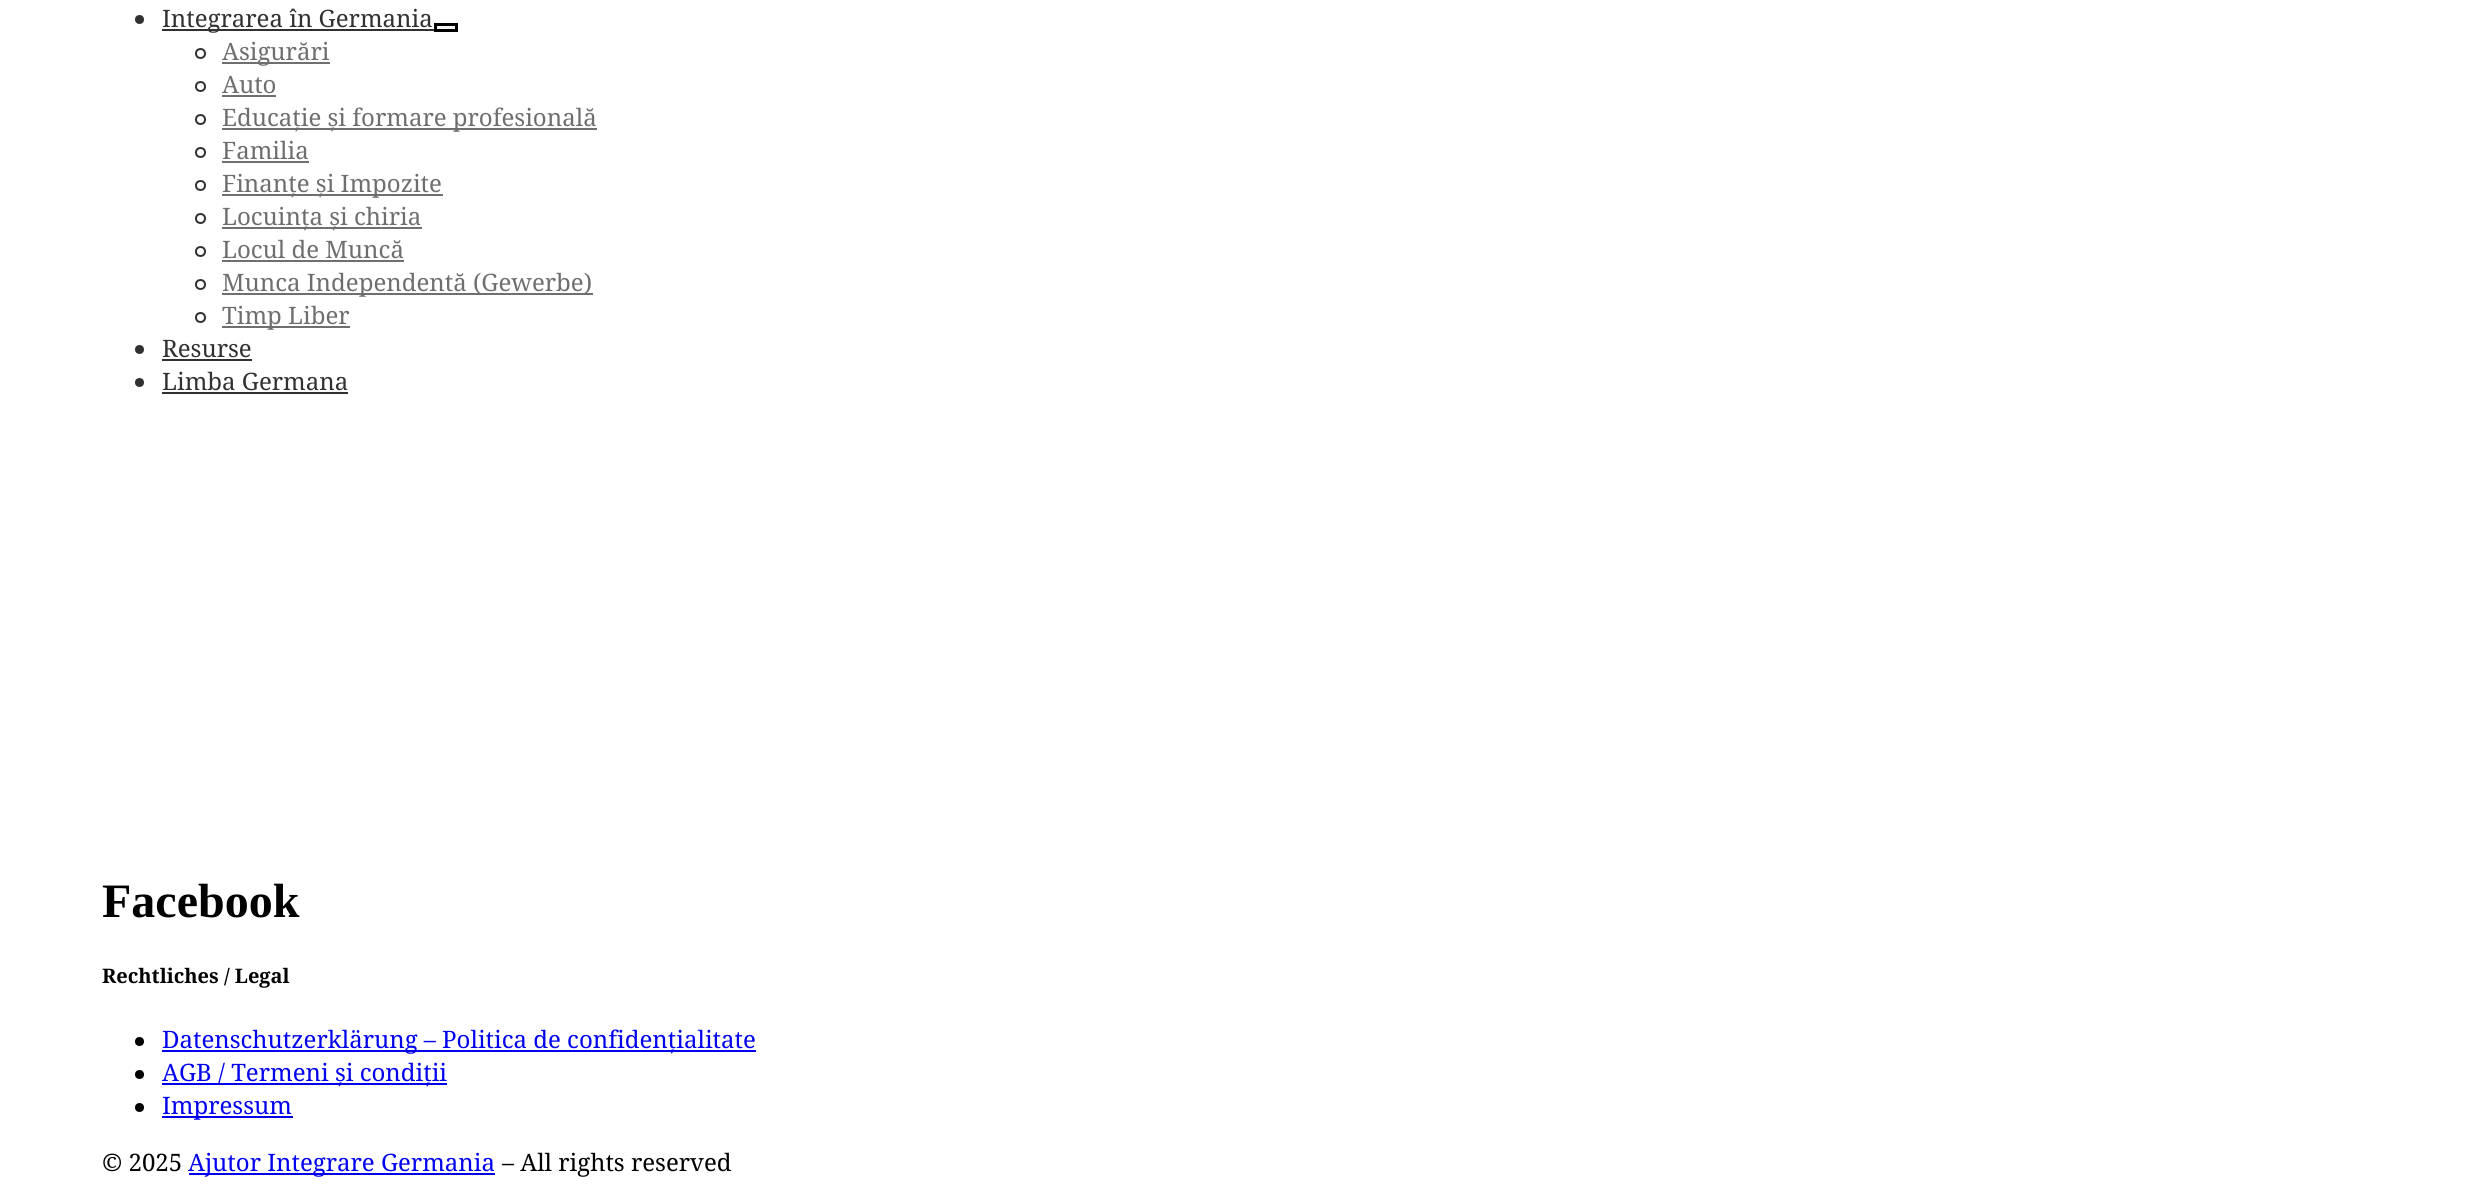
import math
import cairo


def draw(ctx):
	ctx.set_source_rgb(1, 1, 1)
	ctx.paint()
	ctx.set_source_rgb(0.192, 0.192, 0.192)
	ctx.arc(139.5, 19.5, 4.5, 0, 2 * math.pi)
	ctx.fill()
	ctx.rectangle(162, 29, 272, 2)
	ctx.fill()
	ctx.select_font_face('Noto Serif')
	ctx.set_font_size(24)
	ctx.move_to(162, 27)
	ctx.show_text('Integrarea în Germania')
	ctx.set_source_rgb(0.957, 0.957, 0.957)
	ctx.rectangle(435.5, 24.5, 21, 6)
	ctx.fill_preserve()
	ctx.set_source_rgb(0, 0, 0)
	ctx.set_line_width(3)
	ctx.stroke()
	ctx.arc(200.5, 53.5, 4.5, 0, 2 * math.pi)
	ctx.set_source_rgb(0.192, 0.192, 0.192)
	ctx.set_line_width(2)
	ctx.stroke()
	ctx.set_source_rgb(0.435, 0.435, 0.435)
	ctx.rectangle(222, 62, 108, 2)
	ctx.fill()
	ctx.set_source_rgb(0.431, 0.431, 0.431)
	ctx.move_to(222, 60)
	ctx.show_text('Asigurări')
	ctx.new_path()
	ctx.arc(200.5, 86.5, 4.5, 0, 2 * math.pi)
	ctx.set_source_rgb(0.192, 0.192, 0.192)
	ctx.stroke()
	ctx.set_source_rgb(0.431, 0.431, 0.431)
	ctx.move_to(222, 93)
	ctx.show_text('Auto')
	ctx.set_source_rgb(0.435, 0.435, 0.435)
	ctx.rectangle(222, 95, 54, 2)
	ctx.fill()
	ctx.arc(200.5, 119.5, 4.5, 0, 2 * math.pi)
	ctx.set_source_rgb(0.192, 0.192, 0.192)
	ctx.stroke()
	ctx.set_source_rgb(0.435, 0.435, 0.435)
	ctx.rectangle(222, 128, 375, 2)
	ctx.fill()
	ctx.set_source_rgb(0.431, 0.431, 0.431)
	ctx.move_to(222, 126)
	ctx.show_text('Educație și formare profesională')
	ctx.new_path()
	ctx.arc(200.5, 152.5, 4.5, 0, 2 * math.pi)
	ctx.set_source_rgb(0.192, 0.192, 0.192)
	ctx.stroke()
	ctx.set_source_rgb(0.431, 0.431, 0.431)
	ctx.move_to(222, 159)
	ctx.show_text('Familia')
	ctx.set_source_rgb(0.435, 0.435, 0.435)
	ctx.rectangle(222, 161, 87, 2)
	ctx.fill()
	ctx.arc(200.5, 185.5, 4.5, 0, 2 * math.pi)
	ctx.set_source_rgb(0.192, 0.192, 0.192)
	ctx.stroke()
	ctx.set_source_rgb(0.435, 0.435, 0.435)
	ctx.rectangle(222, 194, 221, 2)
	ctx.fill()
	ctx.set_source_rgb(0.431, 0.431, 0.431)
	ctx.move_to(222, 192)
	ctx.show_text('Finanțe și Impozite')
	ctx.new_path()
	ctx.arc(200.5, 218.5, 4.5, 0, 2 * math.pi)
	ctx.set_source_rgb(0.192, 0.192, 0.192)
	ctx.stroke()
	ctx.set_source_rgb(0.435, 0.435, 0.435)
	ctx.rectangle(222, 227, 200, 2)
	ctx.fill()
	ctx.set_source_rgb(0.431, 0.431, 0.431)
	ctx.move_to(222, 225)
	ctx.show_text('Locuința și chiria')
	ctx.new_path()
	ctx.arc(200.5, 251.5, 4.5, 0, 2 * math.pi)
	ctx.set_source_rgb(0.192, 0.192, 0.192)
	ctx.stroke()
	ctx.set_source_rgb(0.431, 0.431, 0.431)
	ctx.move_to(222, 258)
	ctx.show_text('Locul de Muncă')
	ctx.set_source_rgb(0.435, 0.435, 0.435)
	ctx.rectangle(222, 260, 182, 2)
	ctx.fill()
	ctx.arc(200.5, 284.5, 4.5, 0, 2 * math.pi)
	ctx.set_source_rgb(0.192, 0.192, 0.192)
	ctx.stroke()
	ctx.set_source_rgb(0.435, 0.435, 0.435)
	ctx.rectangle(222, 293, 371, 2)
	ctx.fill()
	ctx.set_source_rgb(0.431, 0.431, 0.431)
	ctx.move_to(222, 291)
	ctx.show_text('Munca Independentă (Gewerbe)')
	ctx.new_path()
	ctx.arc(200.5, 317.5, 4.5, 0, 2 * math.pi)
	ctx.set_source_rgb(0.192, 0.192, 0.192)
	ctx.stroke()
	ctx.set_source_rgb(0.435, 0.435, 0.435)
	ctx.rectangle(222, 326, 128, 2)
	ctx.fill()
	ctx.set_source_rgb(0.431, 0.431, 0.431)
	ctx.move_to(222, 324)
	ctx.show_text('Timp Liber')
	ctx.set_source_rgb(0.192, 0.192, 0.192)
	ctx.new_path()
	ctx.arc(139.5, 349.5, 4.5, 0, 2 * math.pi)
	ctx.fill()
	ctx.move_to(162, 357)
	ctx.show_text('Resurse')
	ctx.rectangle(162, 359, 90, 2)
	ctx.fill()
	ctx.arc(139.5, 382.5, 4.5, 0, 2 * math.pi)
	ctx.fill()
	ctx.move_to(162, 390)
	ctx.show_text('Limba Germana')
	ctx.rectangle(162, 392, 186, 2)
	ctx.fill()
	ctx.select_font_face('Liberation Serif', cairo.FONT_SLANT_NORMAL, cairo.FONT_WEIGHT_BOLD)
	ctx.set_font_size(48)
	ctx.set_source_rgb(0, 0, 0)
	ctx.move_to(102, 917)
	ctx.show_text('Facebook')
	ctx.select_font_face('Noto Serif', cairo.FONT_SLANT_NORMAL, cairo.FONT_WEIGHT_BOLD)
	ctx.set_font_size(20)
	ctx.move_to(102, 983)
	ctx.show_text('Rechtliches / Legal')
	ctx.new_path()
	ctx.arc(139.5, 1041.5, 4.5, 0, 2 * math.pi)
	ctx.fill()
	ctx.set_source_rgb(0, 0, 0.933)
	ctx.rectangle(162, 1050, 594, 2)
	ctx.fill()
	ctx.select_font_face('Noto Serif')
	ctx.set_font_size(24)
	ctx.move_to(162, 1048)
	ctx.show_text('Datenschutzerklärung – Politica de confidențialitate')
	ctx.set_source_rgb(0, 0, 0)
	ctx.new_path()
	ctx.arc(139.5, 1074.5, 4.5, 0, 2 * math.pi)
	ctx.fill()
	ctx.set_source_rgb(0, 0, 0.933)
	ctx.rectangle(162, 1083, 285, 2)
	ctx.fill()
	ctx.move_to(162, 1081)
	ctx.show_text('AGB / Termeni și condiții')
	ctx.set_source_rgb(0, 0, 0)
	ctx.new_path()
	ctx.arc(139.5, 1107.5, 4.5, 0, 2 * math.pi)
	ctx.fill()
	ctx.set_source_rgb(0, 0, 0.933)
	ctx.rectangle(162, 1116, 131, 2)
	ctx.fill()
	ctx.move_to(162, 1114)
	ctx.show_text('Impressum')
	ctx.set_source_rgb(0, 0, 0)
	ctx.move_to(102, 1171)
	ctx.show_text('© 2025')
	ctx.set_source_rgb(0, 0, 0.933)
	ctx.rectangle(189, 1173, 306, 2)
	ctx.fill()
	ctx.move_to(188, 1171)
	ctx.show_text('Ajutor Integrare Germania')
	ctx.set_source_rgb(0, 0, 0)
	ctx.move_to(502, 1171)
	ctx.show_text('– All rights reserved')


surface = cairo.ImageSurface(cairo.FORMAT_RGB24, 2481, 1193)
ctx = cairo.Context(surface)
options = cairo.FontOptions()
options.set_hint_metrics(cairo.HINT_METRICS_OFF)
options.set_hint_style(cairo.HINT_STYLE_NONE)
ctx.set_font_options(options)
ctx.set_miter_limit(4)
draw(ctx)
surface.write_to_png('image.png')
